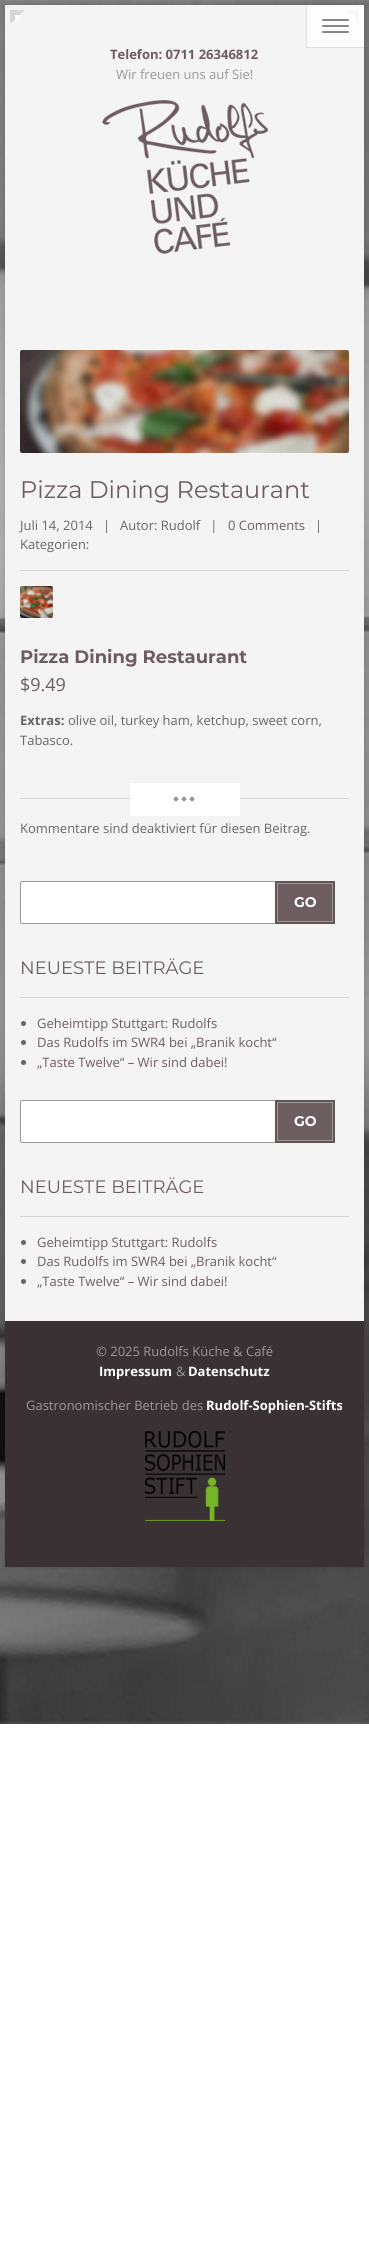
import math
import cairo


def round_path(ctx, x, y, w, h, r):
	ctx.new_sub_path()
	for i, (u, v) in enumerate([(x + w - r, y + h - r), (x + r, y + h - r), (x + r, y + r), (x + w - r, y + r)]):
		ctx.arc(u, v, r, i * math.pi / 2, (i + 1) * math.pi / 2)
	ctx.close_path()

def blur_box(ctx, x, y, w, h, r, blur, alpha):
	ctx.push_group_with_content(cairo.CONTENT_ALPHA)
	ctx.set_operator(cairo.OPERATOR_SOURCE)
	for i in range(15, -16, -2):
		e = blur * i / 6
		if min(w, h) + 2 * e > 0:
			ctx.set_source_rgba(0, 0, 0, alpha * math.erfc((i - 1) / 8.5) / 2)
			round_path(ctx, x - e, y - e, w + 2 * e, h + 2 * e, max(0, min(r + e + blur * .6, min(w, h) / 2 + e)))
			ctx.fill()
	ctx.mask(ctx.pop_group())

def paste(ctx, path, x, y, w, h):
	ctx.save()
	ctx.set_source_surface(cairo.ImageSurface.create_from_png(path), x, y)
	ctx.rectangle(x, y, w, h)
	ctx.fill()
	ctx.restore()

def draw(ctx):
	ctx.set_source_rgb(1, 1, 1)
	ctx.paint()
	paste(ctx, 'media/1.png', 0, 0, 369, 1724)
	ctx.set_source_rgb(0, 0, 0)
	blur_box(ctx, 5, 5, 359, 1562, 0, 2.5, 0.12)
	ctx.set_source_rgb(0.957, 0.957, 0.957)
	ctx.rectangle(5, 5, 359, 1316)
	ctx.fill()
	gradient = cairo.LinearGradient(345, 24, 359, 10)
	gradient.add_color_stop_rgba(0.5, 0.957, 0.957, 0.957, 1)
	gradient.add_color_stop_rgba(0.5, 0.843, 0.843, 0.843, 1)
	ctx.set_source(gradient)
	ctx.rectangle(346, 10, 13, 13)
	ctx.fill()
	ctx.set_source_rgb(1, 1, 1)
	ctx.rectangle(349, 15, 5, 5)
	ctx.fill()
	ctx.set_source_rgba(1, 1, 1, 0.8)
	ctx.rectangle(306, 5, 58, 43)
	ctx.fill()
	ctx.set_source_rgb(0.875, 0.875, 0.875)
	ctx.new_path()
	ctx.move_to(364, 48)
	ctx.line_to(306, 48)
	ctx.line_to(307, 47)
	ctx.line_to(364, 47)
	ctx.close_path()
	ctx.fill()
	ctx.set_source_rgba(0, 0, 0, 0.12)
	ctx.new_path()
	ctx.move_to(306, 48)
	ctx.line_to(306, 5)
	ctx.line_to(307, 5)
	ctx.line_to(307, 47)
	ctx.close_path()
	ctx.fill()
	ctx.set_source_rgb(0.533, 0.533, 0.533)
	round_path(ctx, 322, 19, 27, 2, 1)
	ctx.fill()
	round_path(ctx, 322, 25, 27, 2, 1)
	ctx.fill()
	round_path(ctx, 322, 31, 27, 2, 1)
	ctx.fill()
	gradient = cairo.LinearGradient(24, 24, 10, 10)
	gradient.add_color_stop_rgba(0.5, 0.957, 0.957, 0.957, 1)
	gradient.add_color_stop_rgba(0.5, 0.843, 0.843, 0.843, 1)
	ctx.set_source(gradient)
	ctx.rectangle(10, 10, 14, 13)
	ctx.fill()
	ctx.set_source_rgb(1, 1, 1)
	ctx.rectangle(15, 15, 5, 5)
	ctx.fill()
	ctx.select_font_face('Open Sans', cairo.FONT_SLANT_NORMAL, cairo.FONT_WEIGHT_BOLD)
	ctx.set_font_size(13)
	ctx.set_source_rgb(0.427, 0.365, 0.38)
	ctx.move_to(110, 59)
	ctx.show_text('Telefon: 0711 26346812')
	ctx.select_font_face('Open Sans')
	ctx.set_source_rgb(0.6, 0.6, 0.588)
	ctx.move_to(116, 79)
	ctx.show_text('Wir freuen uns auf Sie!')
	paste(ctx, 'media/2.png', 102, 100, 166, 154)
	paste(ctx, 'media/3.png', 20, 350, 329, 103)
	ctx.select_font_face('Montserrat')
	ctx.set_font_size(24)
	ctx.set_source_rgb(0.427, 0.365, 0.38)
	ctx.move_to(20, 498)
	ctx.show_text('Pizza Dining Restaurant')
	ctx.set_source_rgb(0.843, 0.843, 0.843)
	ctx.rectangle(20, 570, 329, 1)
	ctx.fill()
	ctx.select_font_face('Open Sans')
	ctx.set_font_size(13)
	ctx.set_source_rgb(0.4, 0.4, 0.392)
	for x, y, s in [
		(20, 530, 'Juli 14, 2014'),
		(103, 530, '|'),
		(120, 530, 'Autor: Rudolf   |'),
	]:
		ctx.move_to(x, y)
		ctx.show_text(s)
	ctx.set_source_rgb(0.427, 0.365, 0.38)
	ctx.move_to(228, 530)
	ctx.show_text('0 Comments')
	ctx.set_source_rgb(0.4, 0.4, 0.392)
	ctx.move_to(315, 530)
	ctx.show_text('|')
	ctx.move_to(20, 549)
	ctx.show_text('Kategorien:')
	paste(ctx, 'media/4.png', 20, 586, 33, 32)
	ctx.select_font_face('Montserrat', cairo.FONT_SLANT_NORMAL, cairo.FONT_WEIGHT_BOLD)
	ctx.set_font_size(18)
	ctx.set_source_rgb(0.427, 0.365, 0.38)
	ctx.move_to(20, 663)
	ctx.show_text('Pizza Dining Restaurant')
	ctx.select_font_face('Open Sans')
	ctx.move_to(20, 691)
	ctx.show_text('$9.49')
	ctx.select_font_face('Open Sans', cairo.FONT_SLANT_NORMAL, cairo.FONT_WEIGHT_BOLD)
	ctx.set_font_size(13)
	ctx.set_source_rgb(0.4, 0.4, 0.392)
	ctx.move_to(20, 725)
	ctx.show_text('Extras:')
	ctx.select_font_face('Open Sans')
	ctx.move_to(68, 725)
	ctx.show_text('olive oil, turkey ham, ketchup, sweet corn,')
	ctx.move_to(20, 745)
	ctx.show_text('Tabasco.')
	ctx.set_source_rgb(0.843, 0.843, 0.843)
	ctx.rectangle(20, 798, 329, 1)
	ctx.fill()
	ctx.set_source_rgb(1, 1, 1)
	ctx.rectangle(130, 783, 110, 33)
	ctx.fill()
	paste(ctx, 'media/5.png', 173, 796, 22, 6)
	ctx.set_source_rgb(0.4, 0.4, 0.392)
	ctx.move_to(20, 833)
	ctx.show_text('Kommentare sind deaktiviert für diesen Beitrag.')
	ctx.set_source_rgb(1, 1, 1)
	round_path(ctx, 20.5, 881.5, 256, 42, 1.5)
	ctx.fill_preserve()
	ctx.set_source_rgb(0.6, 0.6, 0.588)
	ctx.set_line_width(1)
	ctx.stroke()
	ctx.rectangle(276, 882, 58, 41)
	ctx.set_source_rgb(0.384, 0.329, 0.341)
	ctx.set_line_width(2)
	ctx.stroke()
	ctx.set_source_rgb(0.427, 0.365, 0.38)
	ctx.rectangle(277.5, 883.5, 55, 38)
	ctx.fill_preserve()
	ctx.set_source_rgb(0.6, 0.6, 0.588)
	ctx.set_line_width(1)
	ctx.stroke()
	ctx.select_font_face('Montserrat', cairo.FONT_SLANT_NORMAL, cairo.FONT_WEIGHT_BOLD)
	ctx.set_font_size(14)
	ctx.set_source_rgb(1, 1, 1)
	ctx.move_to(294, 907)
	ctx.show_text('GO')
	ctx.set_source_rgb(0.843, 0.843, 0.843)
	ctx.rectangle(20, 997, 329, 1)
	ctx.fill()
	ctx.select_font_face('Montserrat')
	ctx.set_font_size(18)
	ctx.set_source_rgb(0.427, 0.365, 0.38)
	ctx.move_to(20, 974)
	ctx.show_text('NEUESTE BEITRÄGE')
	ctx.set_source_rgb(0.4, 0.4, 0.392)
	ctx.new_path()
	ctx.arc(23.5, 1023.5, 2.5, 0, 2 * math.pi)
	ctx.fill()
	ctx.select_font_face('Open Sans')
	ctx.set_font_size(13)
	ctx.set_source_rgb(0.427, 0.365, 0.38)
	ctx.move_to(37, 1028)
	ctx.show_text('Geheimtipp Stuttgart: Rudolfs')
	ctx.set_source_rgb(0.4, 0.4, 0.392)
	ctx.new_path()
	ctx.arc(23.5, 1042.5, 2.5, 0, 2 * math.pi)
	ctx.fill()
	ctx.set_source_rgb(0.427, 0.365, 0.38)
	ctx.move_to(37, 1047)
	ctx.show_text('Das Rudolfs im SWR4 bei „Branik kocht“')
	ctx.set_source_rgb(0.4, 0.4, 0.392)
	ctx.new_path()
	ctx.arc(23.5, 1062.5, 2.5, 0, 2 * math.pi)
	ctx.fill()
	ctx.set_source_rgb(0.427, 0.365, 0.38)
	ctx.move_to(37, 1067)
	ctx.show_text('„Taste Twelve“ – Wir sind dabei!')
	ctx.set_source_rgb(1, 1, 1)
	round_path(ctx, 20.5, 1100.5, 256, 42, 1.5)
	ctx.fill_preserve()
	ctx.set_source_rgb(0.6, 0.6, 0.588)
	ctx.stroke()
	ctx.rectangle(276, 1101, 58, 41)
	ctx.set_source_rgb(0.384, 0.329, 0.341)
	ctx.set_line_width(2)
	ctx.stroke()
	ctx.set_source_rgb(0.427, 0.365, 0.38)
	ctx.rectangle(277.5, 1102.5, 55, 38)
	ctx.fill_preserve()
	ctx.set_source_rgb(0.6, 0.6, 0.588)
	ctx.set_line_width(1)
	ctx.stroke()
	ctx.select_font_face('Montserrat', cairo.FONT_SLANT_NORMAL, cairo.FONT_WEIGHT_BOLD)
	ctx.set_font_size(14)
	ctx.set_source_rgb(1, 1, 1)
	ctx.move_to(294, 1126)
	ctx.show_text('GO')
	ctx.set_source_rgb(0.843, 0.843, 0.843)
	ctx.rectangle(20, 1216, 329, 1)
	ctx.fill()
	ctx.select_font_face('Montserrat')
	ctx.set_font_size(18)
	ctx.set_source_rgb(0.427, 0.365, 0.38)
	ctx.move_to(20, 1193)
	ctx.show_text('NEUESTE BEITRÄGE')
	ctx.set_source_rgb(0.4, 0.4, 0.392)
	ctx.new_path()
	ctx.arc(23.5, 1242.5, 2.5, 0, 2 * math.pi)
	ctx.fill()
	ctx.select_font_face('Open Sans')
	ctx.set_font_size(13)
	ctx.set_source_rgb(0.427, 0.365, 0.38)
	ctx.move_to(37, 1247)
	ctx.show_text('Geheimtipp Stuttgart: Rudolfs')
	ctx.set_source_rgb(0.4, 0.4, 0.392)
	ctx.new_path()
	ctx.arc(23.5, 1261.5, 2.5, 0, 2 * math.pi)
	ctx.fill()
	ctx.set_source_rgb(0.427, 0.365, 0.38)
	ctx.move_to(37, 1266)
	ctx.show_text('Das Rudolfs im SWR4 bei „Branik kocht“')
	ctx.set_source_rgb(0.4, 0.4, 0.392)
	ctx.new_path()
	ctx.arc(23.5, 1281.5, 2.5, 0, 2 * math.pi)
	ctx.fill()
	ctx.set_source_rgb(0.427, 0.365, 0.38)
	ctx.move_to(37, 1286)
	ctx.show_text('„Taste Twelve“ – Wir sind dabei!')
	ctx.set_source_rgb(0.227, 0.192, 0.204)
	ctx.rectangle(5, 1321, 359, 246)
	ctx.fill()
	ctx.set_source_rgb(0.6, 0.6, 0.588)
	ctx.move_to(96, 1356)
	ctx.show_text('© 2025 Rudolfs Küche & Café')
	ctx.select_font_face('Open Sans', cairo.FONT_SLANT_NORMAL, cairo.FONT_WEIGHT_BOLD)
	ctx.set_source_rgb(1, 1, 1)
	ctx.move_to(99, 1376)
	ctx.show_text('Impressum')
	ctx.select_font_face('Open Sans')
	ctx.set_source_rgb(0.6, 0.6, 0.588)
	ctx.move_to(176, 1376)
	ctx.show_text('&')
	ctx.select_font_face('Open Sans', cairo.FONT_SLANT_NORMAL, cairo.FONT_WEIGHT_BOLD)
	ctx.set_source_rgb(1, 1, 1)
	ctx.move_to(188, 1376)
	ctx.show_text('Datenschutz')
	ctx.select_font_face('Open Sans')
	ctx.set_source_rgb(0.6, 0.6, 0.588)
	ctx.move_to(26, 1410)
	ctx.show_text('Gastronomischer Betrieb des')
	ctx.select_font_face('Open Sans', cairo.FONT_SLANT_NORMAL, cairo.FONT_WEIGHT_BOLD)
	ctx.set_source_rgb(1, 1, 1)
	ctx.move_to(206, 1410)
	ctx.show_text('Rudolf-Sophien-Stifts')
	paste(ctx, 'media/6.png', 145, 1431, 80, 90)


surface = cairo.ImageSurface(cairo.FORMAT_RGB24, 369, 2242)
ctx = cairo.Context(surface)
options = cairo.FontOptions()
options.set_hint_metrics(cairo.HINT_METRICS_OFF)
options.set_hint_style(cairo.HINT_STYLE_NONE)
ctx.set_font_options(options)
ctx.set_miter_limit(4)
draw(ctx)
surface.write_to_png('image.png')
